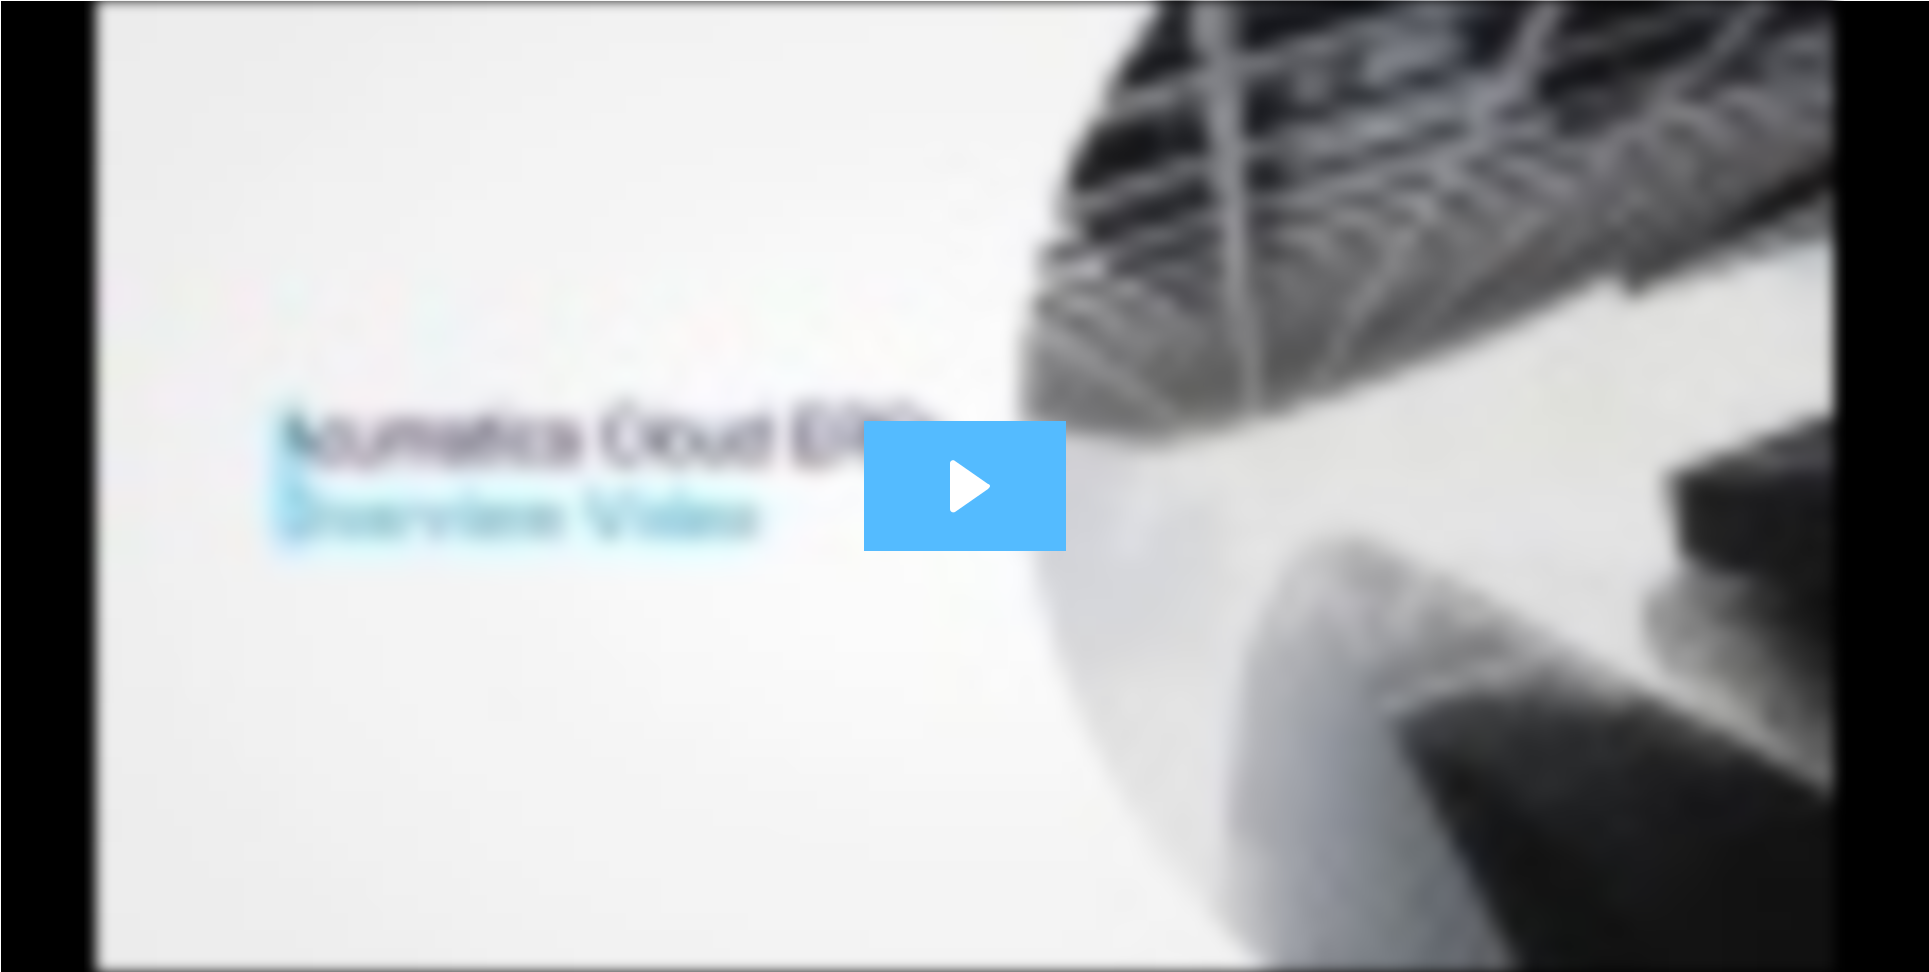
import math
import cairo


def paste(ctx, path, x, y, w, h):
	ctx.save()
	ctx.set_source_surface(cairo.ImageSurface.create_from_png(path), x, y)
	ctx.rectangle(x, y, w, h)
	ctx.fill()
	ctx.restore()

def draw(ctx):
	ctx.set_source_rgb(1, 1, 1)
	ctx.paint()
	ctx.set_source_rgb(0, 0, 0)
	ctx.rectangle(1, 1, 1928, 971)
	ctx.fill()
	paste(ctx, 'media/2.png', 89, 0, 1755, 1)
	paste(ctx, 'media/1.png', 84, 0, 1762, 972)
	ctx.set_source_rgb(0.329, 0.733, 1)
	ctx.rectangle(864, 421, 202, 130)
	ctx.fill()
	ctx.set_source_rgb(1, 1, 1)
	ctx.set_fill_rule(cairo.FILL_RULE_EVEN_ODD)
	ctx.new_path()
	ctx.move_to(955, 461)
	ctx.curve_to(953, 459, 950, 461, 950, 463)
	ctx.line_to(950, 509)
	ctx.curve_to(950, 512, 953, 513, 955, 512)
	ctx.line_to(988, 489)
	ctx.curve_to(989, 488, 990, 487, 990, 486)
	ctx.curve_to(990, 485, 989, 484, 988, 484)
	ctx.close_path()
	ctx.fill()


surface = cairo.ImageSurface(cairo.FORMAT_RGB24, 1929, 972)
ctx = cairo.Context(surface)
options = cairo.FontOptions()
options.set_hint_metrics(cairo.HINT_METRICS_OFF)
options.set_hint_style(cairo.HINT_STYLE_NONE)
ctx.set_font_options(options)
ctx.set_miter_limit(4)
draw(ctx)
surface.write_to_png('image.png')
